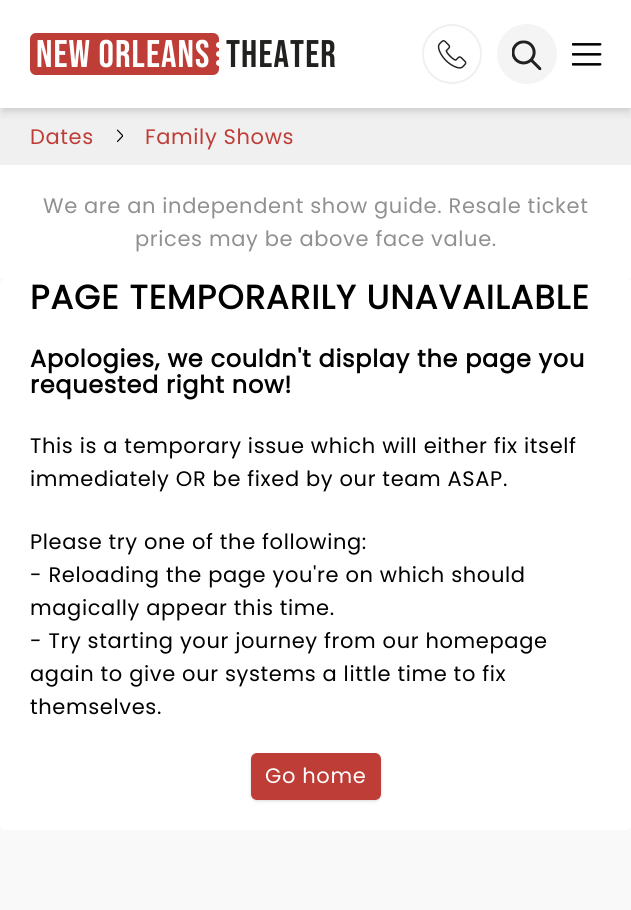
import math
import cairo


def write_spaced(ctx, x, y, s, letter, word):
	ctx.move_to(x, y)
	for ch in s:
		ctx.show_text(ch)
		ctx.rel_move_to(letter + word * (ch == ' '), 0)

def round_path(ctx, x, y, w, h, r):
	ctx.new_sub_path()
	for i, (u, v) in enumerate([(x + w - r, y + h - r), (x + r, y + h - r), (x + r, y + r), (x + w - r, y + r)]):
		ctx.arc(u, v, r, i * math.pi / 2, (i + 1) * math.pi / 2)
	ctx.close_path()

def blur_box(ctx, x, y, w, h, r, blur, alpha):
	ctx.push_group_with_content(cairo.CONTENT_ALPHA)
	ctx.set_operator(cairo.OPERATOR_SOURCE)
	for i in range(15, -16, -2):
		e = blur * i / 6
		if min(w, h) + 2 * e > 0:
			ctx.set_source_rgba(0, 0, 0, alpha * math.erfc((i - 1) / 8.5) / 2)
			round_path(ctx, x - e, y - e, w + 2 * e, h + 2 * e, max(0, min(r + e + blur * .6, min(w, h) / 2 + e)))
			ctx.fill()
	ctx.mask(ctx.pop_group())

def paste(ctx, path, x, y, w, h):
	ctx.save()
	ctx.set_source_surface(cairo.ImageSurface.create_from_png(path), x, y)
	ctx.rectangle(x, y, w, h)
	ctx.fill()
	ctx.restore()

def draw(ctx):
	ctx.set_source_rgb(0.973, 0.973, 0.973)
	ctx.paint()
	ctx.set_source_rgb(0.941, 0.941, 0.941)
	ctx.rectangle(0, 108, 631, 57)
	ctx.fill()
	ctx.set_source_rgb(0, 0, 0)
	blur_box(ctx, 3, 6, 626, 102, 0, 3, 0.1)
	blur_box(ctx, 2, 8, 628, 105, 0, 4.5, 0.1)
	ctx.set_source_rgb(1, 1, 1)
	ctx.rectangle(0, 0, 631, 108)
	ctx.fill()
	ctx.set_source_rgb(0.749, 0.239, 0.216)
	round_path(ctx, 30, 33, 189, 42, 6)
	ctx.fill()
	ctx.select_font_face('Bebas Neue')
	ctx.set_font_size(38.5)
	ctx.set_source_rgb(1, 1, 1)
	write_spaced(ctx, 36, 67, 'New Orleans', 1.1, 0)
	ctx.new_path()
	ctx.arc(219, 45, 3, 0, 2 * math.pi)
	ctx.fill()
	ctx.arc(219, 54, 3, 0, 2 * math.pi)
	ctx.fill()
	ctx.arc(219, 63, 3, 0, 2 * math.pi)
	ctx.fill()
	ctx.set_source_rgb(0.129, 0.129, 0.125)
	write_spaced(ctx, 226, 67, 'Theater', 1.1, 0)
	ctx.new_path()
	ctx.arc(452, 54, 29, 0, 2 * math.pi)
	ctx.set_source_rgb(0.941, 0.941, 0.941)
	ctx.stroke()
	paste(ctx, 'media/1.png', 437, 40, 30, 29)
	ctx.set_source_rgb(0.957, 0.957, 0.957)
	ctx.arc(527, 54, 30, 0, 2 * math.pi)
	ctx.fill()
	paste(ctx, 'media/2.png', 512, 40, 30, 31)
	paste(ctx, 'media/3.png', 572, 43, 30, 23)
	ctx.select_font_face('Poppins')
	ctx.set_font_size(21)
	ctx.set_source_rgb(0.749, 0.239, 0.216)
	write_spaced(ctx, 30, 144, 'Dates', 0.63, 0)
	paste(ctx, 'media/4.png', 116, 129, 7, 13)
	write_spaced(ctx, 145, 144, 'Family Shows', 0.63, 0)
	ctx.set_source_rgb(1, 1, 1)
	ctx.rectangle(0, 165, 631, 114)
	ctx.fill()
	ctx.set_source_rgb(0.565, 0.565, 0.561)
	write_spaced(ctx, 43, 213, 'We are an independent show guide. Resale ticket', 0.63, 0)
	write_spaced(ctx, 135, 246, 'prices may be above face value.', 0.63, 0)
	ctx.set_source_rgb(1, 1, 1)
	round_path(ctx, 0, 279, 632, 551, 6)
	ctx.fill()
	ctx.select_font_face('Poppins', cairo.FONT_SLANT_NORMAL, cairo.FONT_WEIGHT_BOLD)
	ctx.set_font_size(33.6)
	ctx.set_source_rgb(0, 0, 0)
	write_spaced(ctx, 30, 309, 'PAGE TEMPORARILY UNAVAILABLE', 1, 0)
	ctx.set_font_size(24)
	write_spaced(ctx, 30, 367, 'Apologies, we couldn\'t display the page you', 0.7, 0)
	write_spaced(ctx, 30, 393, 'requested right now!', 0.7, 0)
	ctx.select_font_face('Poppins')
	ctx.set_font_size(21)
	for x, y, s in [
		(30, 453, 'This is a temporary issue which will either fix itself'),
		(30, 486, 'immediately OR be fixed by our team ASAP.'),
		(30, 549, 'Please try one of the following:'),
		(30, 582, '- Reloading the page you\'re on which should'),
		(30, 615, 'magically appear this time.'),
		(30, 648, '- Try starting your journey from our homepage'),
		(30, 681, 'again to give our systems a little time to fix'),
		(30, 714, 'themselves.'),
	]:
		write_spaced(ctx, x, y, s, 0.63, 0)
	ctx.set_source_rgb(0, 0, 0)
	blur_box(ctx, 252, 756, 128, 44, 5, 1.5, 0.1)
	blur_box(ctx, 251, 755, 130, 46, 6, 2, 0.1)
	ctx.set_source_rgb(0.749, 0.239, 0.216)
	round_path(ctx, 251, 753, 130, 47, 6)
	ctx.fill()
	ctx.set_source_rgb(1, 1, 1)
	write_spaced(ctx, 265, 783, 'Go home', 0.63, 0)


surface = cairo.ImageSurface(cairo.FORMAT_RGB24, 631, 910)
ctx = cairo.Context(surface)
options = cairo.FontOptions()
options.set_hint_metrics(cairo.HINT_METRICS_OFF)
options.set_hint_style(cairo.HINT_STYLE_NONE)
ctx.set_font_options(options)
ctx.set_miter_limit(4)
draw(ctx)
surface.write_to_png('image.png')
